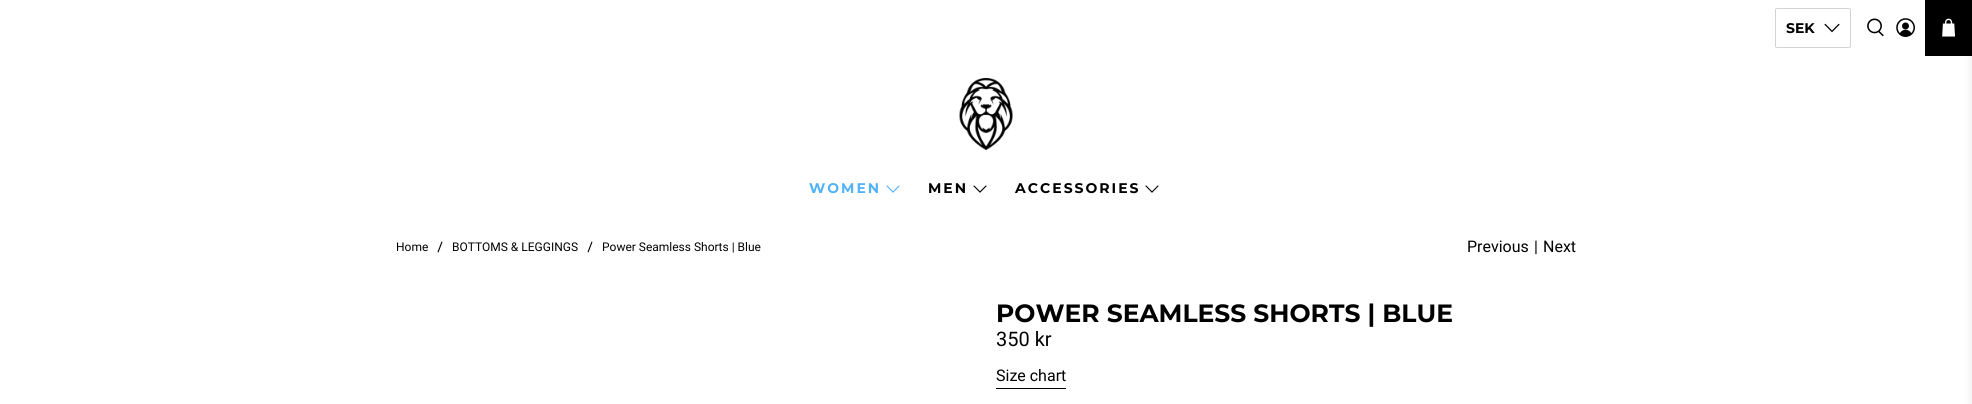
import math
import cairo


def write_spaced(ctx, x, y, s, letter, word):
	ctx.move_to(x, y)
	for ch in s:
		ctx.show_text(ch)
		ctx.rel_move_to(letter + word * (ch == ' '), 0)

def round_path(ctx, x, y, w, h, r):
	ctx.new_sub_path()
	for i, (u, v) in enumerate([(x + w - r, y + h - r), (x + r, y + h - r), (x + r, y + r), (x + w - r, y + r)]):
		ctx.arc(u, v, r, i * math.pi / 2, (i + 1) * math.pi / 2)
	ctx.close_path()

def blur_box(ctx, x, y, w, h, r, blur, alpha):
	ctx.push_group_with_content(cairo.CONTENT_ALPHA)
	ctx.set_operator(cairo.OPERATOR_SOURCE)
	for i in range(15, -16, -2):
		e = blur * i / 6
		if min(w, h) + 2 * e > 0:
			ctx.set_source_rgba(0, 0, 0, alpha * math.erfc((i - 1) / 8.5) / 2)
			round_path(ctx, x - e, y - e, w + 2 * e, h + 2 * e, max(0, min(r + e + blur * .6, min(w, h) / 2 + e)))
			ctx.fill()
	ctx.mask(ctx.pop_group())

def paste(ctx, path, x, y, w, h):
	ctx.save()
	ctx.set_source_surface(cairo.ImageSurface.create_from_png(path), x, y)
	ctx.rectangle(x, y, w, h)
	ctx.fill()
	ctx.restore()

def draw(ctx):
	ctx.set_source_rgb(1, 1, 1)
	ctx.paint()
	round_path(ctx, 1775.5, 8.5, 75, 39, 1.5)
	ctx.set_source_rgb(0.827, 0.827, 0.827)
	ctx.set_line_width(1)
	ctx.stroke()
	ctx.select_font_face('Montserrat', cairo.FONT_SLANT_NORMAL, cairo.FONT_WEIGHT_BOLD)
	ctx.set_font_size(14)
	ctx.set_source_rgb(0, 0, 0)
	ctx.move_to(1786, 33)
	ctx.show_text('SEK')
	paste(ctx, 'media/1.png', 1824, 23, 16, 10)
	paste(ctx, 'media/2.png', 1867, 18, 17, 19)
	paste(ctx, 'media/3.png', 1896, 18, 19, 19)
	ctx.rectangle(1925, 0, 47, 56)
	ctx.fill()
	paste(ctx, 'media/4.png', 1942, 18, 13, 19)
	ctx.set_source_rgb(0.039, 0.039, 0.039)
	blur_box(ctx, 1972, 8, 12, 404, 0, 4, 0.1)
	paste(ctx, 'media/5.png', 959, 78, 54, 72)
	ctx.set_source_rgb(0.318, 0.698, 0.961)
	write_spaced(ctx, 809, 193, 'WOMEN', 2, 0)
	paste(ctx, 'media/6.png', 886, 185, 14, 8)
	ctx.set_source_rgb(0, 0, 0)
	write_spaced(ctx, 928, 193, 'MEN', 2, 0)
	paste(ctx, 'media/7.png', 973, 185, 14, 8)
	write_spaced(ctx, 1015, 193, 'ACCESSORIES', 2, 0)
	paste(ctx, 'media/7.png', 1145, 185, 14, 8)
	ctx.select_font_face('Roboto')
	ctx.set_font_size(12)
	ctx.move_to(396, 251)
	ctx.show_text('Home')
	ctx.new_path()
	ctx.move_to(437.5, 252)
	ctx.line_to(441.5, 241.5)
	ctx.line_to(442.5, 242)
	ctx.line_to(438.5, 252.5)
	ctx.close_path()
	ctx.fill()
	ctx.move_to(452, 251)
	ctx.show_text('BOTTOMS & LEGGINGS')
	ctx.new_path()
	ctx.move_to(587.5, 252)
	ctx.line_to(591.5, 241.5)
	ctx.line_to(592.5, 242)
	ctx.line_to(588.5, 252.5)
	ctx.close_path()
	ctx.fill()
	ctx.move_to(602, 251)
	ctx.show_text('Power Seamless Shorts | Blue')
	ctx.set_font_size(16)
	for x, y, s in [
		(1467, 252, 'Previous'),
		(1534, 252, '|'),
		(1543, 252, 'Next'),
	]:
		ctx.move_to(x, y)
		ctx.show_text(s)
	ctx.select_font_face('Montserrat', cairo.FONT_SLANT_NORMAL, cairo.FONT_WEIGHT_BOLD)
	ctx.set_font_size(25)
	ctx.move_to(996, 322)
	ctx.show_text('POWER SEAMLESS SHORTS | BLUE')
	ctx.select_font_face('Roboto')
	ctx.set_font_size(20)
	ctx.move_to(996, 346)
	ctx.show_text('350 kr')
	ctx.rectangle(996, 388, 70, 1)
	ctx.fill()
	ctx.set_font_size(16)
	ctx.move_to(996, 381)
	ctx.show_text('Size chart')


surface = cairo.ImageSurface(cairo.FORMAT_RGB24, 1972, 404)
ctx = cairo.Context(surface)
options = cairo.FontOptions()
options.set_hint_metrics(cairo.HINT_METRICS_OFF)
options.set_hint_style(cairo.HINT_STYLE_NONE)
ctx.set_font_options(options)
ctx.set_miter_limit(4)
draw(ctx)
surface.write_to_png('image.png')
